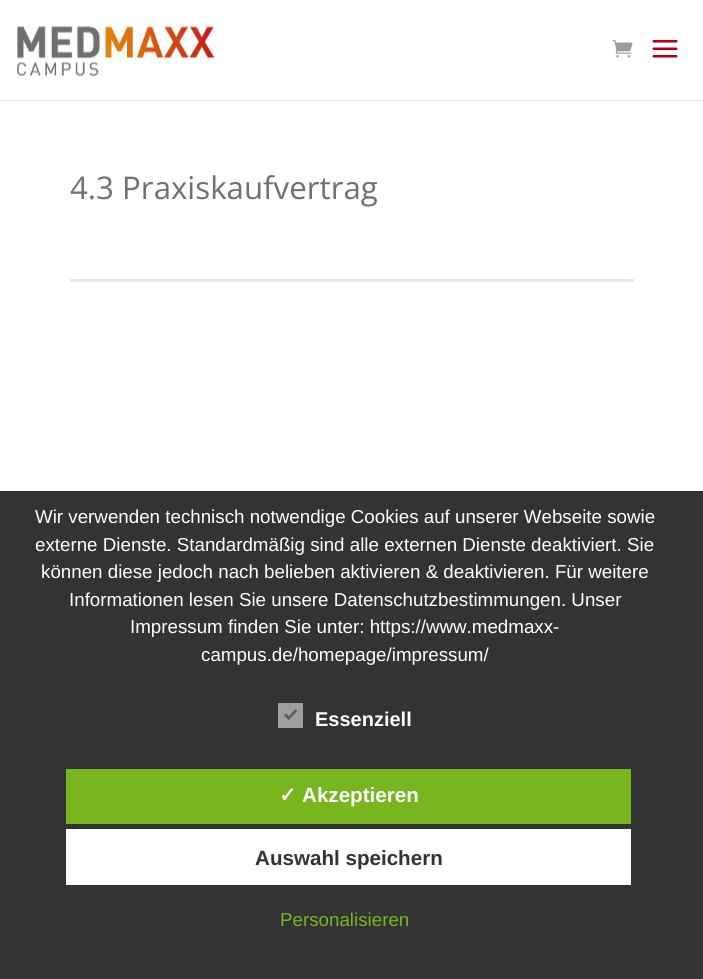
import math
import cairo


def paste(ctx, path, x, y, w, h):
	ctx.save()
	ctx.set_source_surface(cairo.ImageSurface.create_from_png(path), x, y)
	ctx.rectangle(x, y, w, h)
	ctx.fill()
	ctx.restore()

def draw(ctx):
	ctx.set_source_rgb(1, 1, 1)
	ctx.paint()
	ctx.set_source_rgb(0.902, 0.902, 0.902)
	ctx.new_path()
	ctx.move_to(0, 100)
	ctx.line_to(0, 101)
	ctx.line_to(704, 101)
	ctx.line_to(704, 1)
	ctx.line_to(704, 100)
	ctx.close_path()
	ctx.fill()
	paste(ctx, 'media/1.png', 17, 26, 197, 51)
	paste(ctx, 'media/2.png', 612, 40, 21, 18)
	paste(ctx, 'media/3.png', 652, 40, 26, 18)
	ctx.select_font_face('Open Sans')
	ctx.set_font_size(31.25)
	ctx.set_source_rgb(0.439, 0.439, 0.439)
	ctx.move_to(70, 199)
	ctx.show_text('4.3 Praxiskaufvertrag')
	ctx.set_source_rgb(0.886, 0.906, 0.929)
	ctx.rectangle(70, 279, 564, 3)
	ctx.fill()
	ctx.set_source_rgb(0.2, 0.2, 0.2)
	ctx.rectangle(0, 491, 703, 488)
	ctx.fill()
	ctx.select_font_face('Liberation Sans')
	ctx.set_font_size(18.75)
	ctx.set_source_rgb(1, 1, 1)
	for x, y, s in [
		(35, 523, 'Wir verwenden technisch notwendige Cookies auf unserer Webseite sowie'),
		(35, 551, 'externe Dienste. Standardmäßig sind alle externen Dienste deaktiviert. Sie'),
		(41, 578, 'können diese jedoch nach belieben aktivieren & deaktivieren. Für weitere'),
		(69, 606, 'Informationen lesen Sie unsere Datenschutzbestimmungen. Unser'),
		(130, 633, 'Impressum finden Sie unter: https://www.medmaxx-'),
		(201, 661, 'campus.de/homepage/impressum/'),
	]:
		ctx.move_to(x, y)
		ctx.show_text(s)
	ctx.set_source_rgb(0.62, 0.62, 0.62)
	ctx.rectangle(278, 703, 25, 25)
	ctx.fill()
	ctx.set_source_rgb(0.369, 0.369, 0.369)
	ctx.new_path()
	ctx.move_to(295.5, 709)
	ctx.line_to(297.5, 711)
	ctx.line_to(288.5, 720)
	ctx.line_to(287, 718)
	ctx.close_path()
	ctx.fill()
	ctx.new_path()
	ctx.move_to(286, 713.5)
	ctx.line_to(290.5, 718)
	ctx.line_to(288.5, 720)
	ctx.line_to(284, 715.5)
	ctx.close_path()
	ctx.fill()
	ctx.select_font_face('Liberation Sans', cairo.FONT_SLANT_NORMAL, cairo.FONT_WEIGHT_BOLD)
	ctx.set_font_size(20)
	ctx.set_source_rgb(1, 1, 1)
	ctx.move_to(315, 726)
	ctx.show_text('Essenziell')
	ctx.set_source_rgb(0.475, 0.71, 0.122)
	ctx.rectangle(66, 769, 565, 55)
	ctx.fill()
	ctx.select_font_face('DejaVu Sans', cairo.FONT_SLANT_NORMAL, cairo.FONT_WEIGHT_BOLD)
	ctx.set_font_size(20.6)
	ctx.set_source_rgb(1, 1, 1)
	ctx.move_to(279, 802)
	ctx.show_text('✓')
	ctx.select_font_face('Liberation Sans', cairo.FONT_SLANT_NORMAL, cairo.FONT_WEIGHT_BOLD)
	ctx.move_to(302, 802)
	ctx.show_text('Akzeptieren')
	ctx.rectangle(66, 829, 565, 56)
	ctx.fill()
	ctx.set_source_rgb(0.2, 0.2, 0.2)
	ctx.move_to(255, 865)
	ctx.show_text('Auswahl speichern')
	ctx.select_font_face('Liberation Sans')
	ctx.set_font_size(18.75)
	ctx.set_source_rgb(0.475, 0.71, 0.122)
	ctx.move_to(280, 926)
	ctx.show_text('Personalisieren')


surface = cairo.ImageSurface(cairo.FORMAT_RGB24, 703, 979)
ctx = cairo.Context(surface)
options = cairo.FontOptions()
options.set_hint_metrics(cairo.HINT_METRICS_OFF)
options.set_hint_style(cairo.HINT_STYLE_NONE)
ctx.set_font_options(options)
ctx.set_miter_limit(4)
draw(ctx)
surface.write_to_png('image.png')
